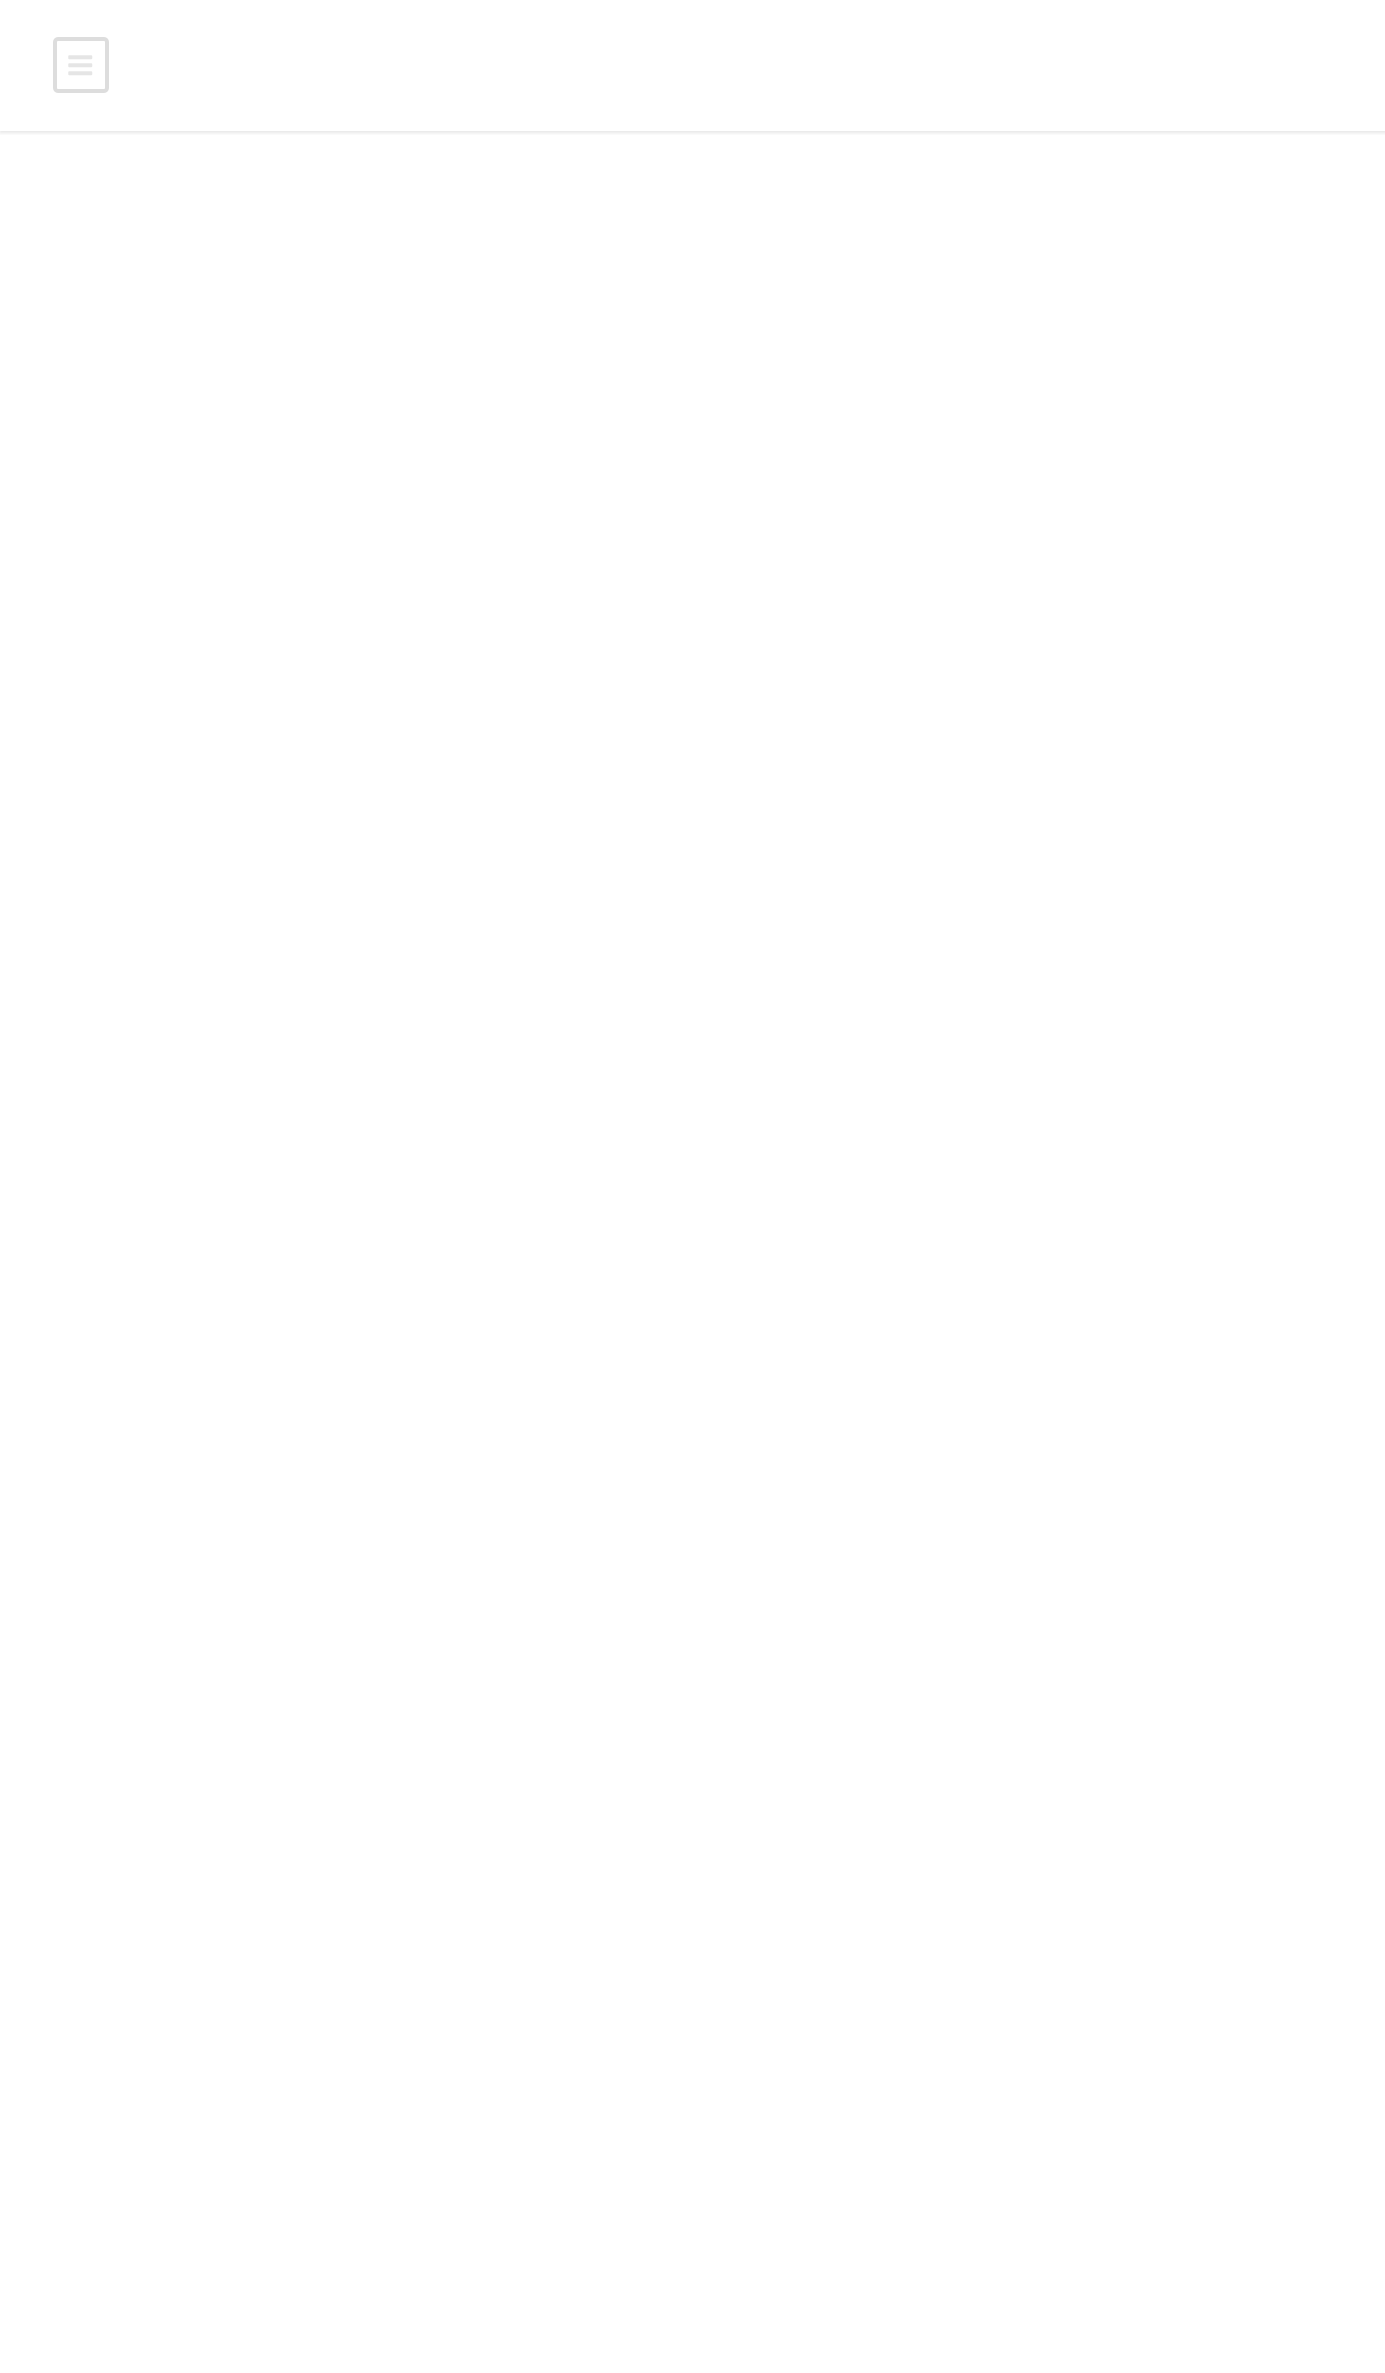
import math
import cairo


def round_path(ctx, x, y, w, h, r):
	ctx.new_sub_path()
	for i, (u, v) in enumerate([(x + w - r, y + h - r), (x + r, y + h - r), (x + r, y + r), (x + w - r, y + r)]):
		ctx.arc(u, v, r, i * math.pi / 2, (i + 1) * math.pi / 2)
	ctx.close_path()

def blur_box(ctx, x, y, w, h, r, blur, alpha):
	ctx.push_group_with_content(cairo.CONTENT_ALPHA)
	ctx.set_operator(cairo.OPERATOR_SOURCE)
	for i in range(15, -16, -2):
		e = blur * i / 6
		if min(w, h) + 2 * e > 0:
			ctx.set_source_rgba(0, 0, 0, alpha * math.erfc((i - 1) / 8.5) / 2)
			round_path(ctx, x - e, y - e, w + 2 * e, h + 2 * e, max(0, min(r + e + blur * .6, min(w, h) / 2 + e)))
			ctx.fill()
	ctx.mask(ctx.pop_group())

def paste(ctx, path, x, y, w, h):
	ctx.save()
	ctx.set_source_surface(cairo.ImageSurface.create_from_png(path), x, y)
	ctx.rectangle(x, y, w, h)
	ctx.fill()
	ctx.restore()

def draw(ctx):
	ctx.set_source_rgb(1, 1, 1)
	ctx.paint()
	ctx.save()
	ctx.rectangle(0, 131, 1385, 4)
	ctx.clip()
	ctx.set_source_rgb(0, 0, 0)
	blur_box(ctx, 0, 2, 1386, 131, 0, 2, 0.1)
	ctx.restore()
	round_path(ctx, 55, 39, 52, 52, 3)
	ctx.set_source_rgb(0.867, 0.867, 0.867)
	ctx.set_line_width(4)
	ctx.stroke()
	paste(ctx, 'media/1.png', 68, 55, 25, 21)


surface = cairo.ImageSurface(cairo.FORMAT_RGB24, 1385, 2373)
ctx = cairo.Context(surface)
options = cairo.FontOptions()
options.set_hint_metrics(cairo.HINT_METRICS_OFF)
options.set_hint_style(cairo.HINT_STYLE_NONE)
ctx.set_font_options(options)
ctx.set_miter_limit(4)
draw(ctx)
surface.write_to_png('image.png')
